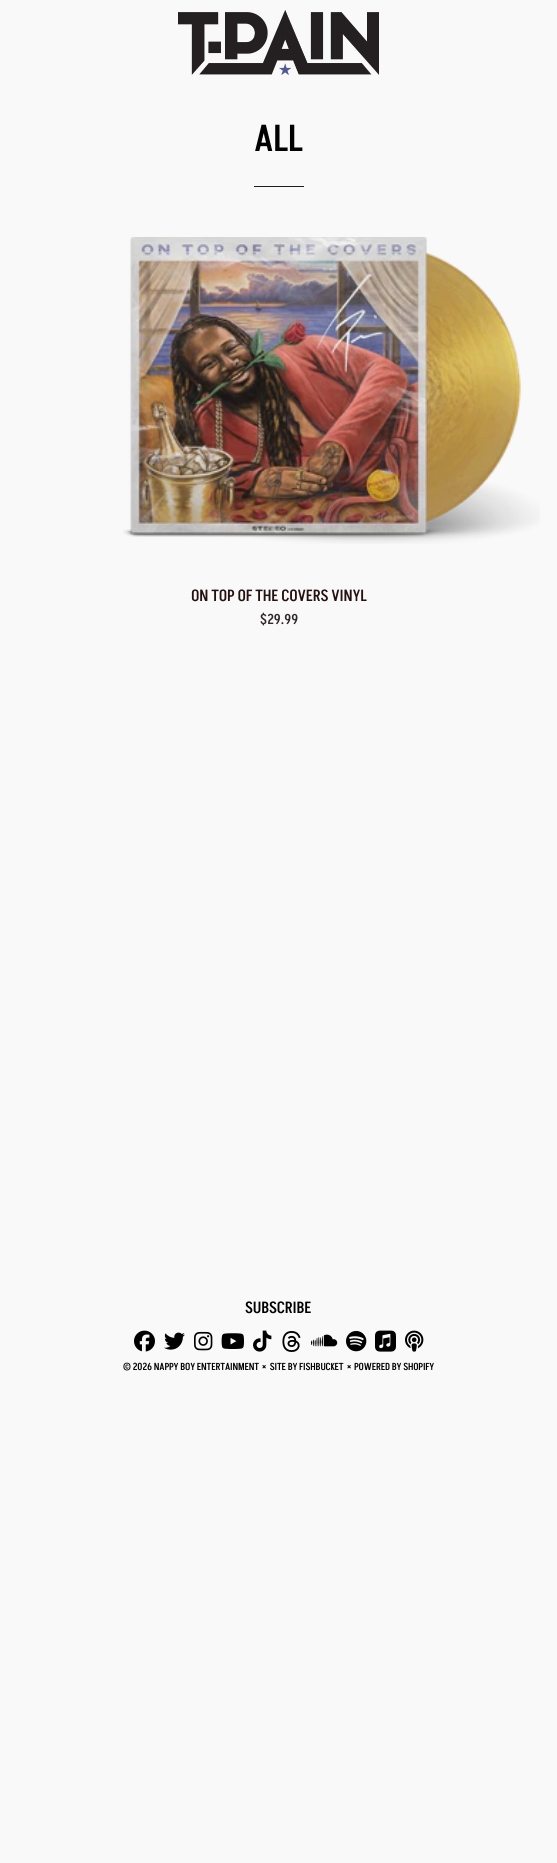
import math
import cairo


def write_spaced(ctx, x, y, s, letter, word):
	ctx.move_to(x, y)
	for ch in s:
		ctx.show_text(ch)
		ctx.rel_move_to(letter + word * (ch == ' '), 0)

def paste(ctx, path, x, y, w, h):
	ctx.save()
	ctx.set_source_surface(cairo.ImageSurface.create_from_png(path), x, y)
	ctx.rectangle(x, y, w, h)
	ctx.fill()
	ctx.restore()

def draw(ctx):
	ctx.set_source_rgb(0.976, 0.976, 0.976)
	ctx.paint()
	paste(ctx, 'media/1.png', 178, 10, 201, 65)
	ctx.select_font_face('Akshar Medium')
	ctx.set_font_size(37)
	ctx.set_source_rgb(0, 0, 0)
	write_spaced(ctx, 254, 151, 'ALL', -0.5, 0)
	ctx.set_source_rgb(0.11, 0.114, 0.114)
	ctx.rectangle(254, 186, 50, 1)
	ctx.fill()
	paste(ctx, 'media/2.png', 123, 237, 417, 307)
	ctx.set_font_size(16)
	ctx.set_source_rgb(0.145, 0.071, 0.063)
	write_spaced(ctx, 191, 601, 'ON TOP OF THE COVERS VINYL', -0.15, 0)
	ctx.set_font_size(14)
	ctx.set_source_rgb(0.184, 0.165, 0.157)
	ctx.move_to(260, 624)
	ctx.show_text('$29.99')
	ctx.set_font_size(16)
	ctx.set_source_rgb(0, 0, 0)
	write_spaced(ctx, 245, 1313, 'SUBSCRIBE', -0.15, 0)
	paste(ctx, 'media/3.png', 134, 1330, 21, 22)
	paste(ctx, 'media/4.png', 164, 1332, 21, 18)
	paste(ctx, 'media/5.png', 194, 1331, 19, 20)
	paste(ctx, 'media/6.png', 221, 1333, 23, 16)
	paste(ctx, 'media/7.png', 253, 1330, 19, 22)
	paste(ctx, 'media/8.png', 282, 1331, 19, 21)
	paste(ctx, 'media/9.png', 311, 1334, 27, 13)
	paste(ctx, 'media/10.png', 346, 1330, 21, 22)
	paste(ctx, 'media/11.png', 375, 1330, 21, 22)
	paste(ctx, 'media/12.png', 405, 1330, 19, 22)
	ctx.set_font_size(10)
	for x, y, s in [
		(123, 1370, '© 2026 NAPPY BOY ENTERTAINMENT'),
		(262, 1370, '×  SITE BY FISHBUCKET'),
		(347, 1370, '×'),
		(354, 1370, 'POWERED BY SHOPIFY'),
	]:
		write_spaced(ctx, x, y, s, -0.15, 0)


surface = cairo.ImageSurface(cairo.FORMAT_RGB24, 557, 1863)
ctx = cairo.Context(surface)
options = cairo.FontOptions()
options.set_hint_metrics(cairo.HINT_METRICS_OFF)
options.set_hint_style(cairo.HINT_STYLE_NONE)
ctx.set_font_options(options)
ctx.set_miter_limit(4)
draw(ctx)
surface.write_to_png('image.png')
